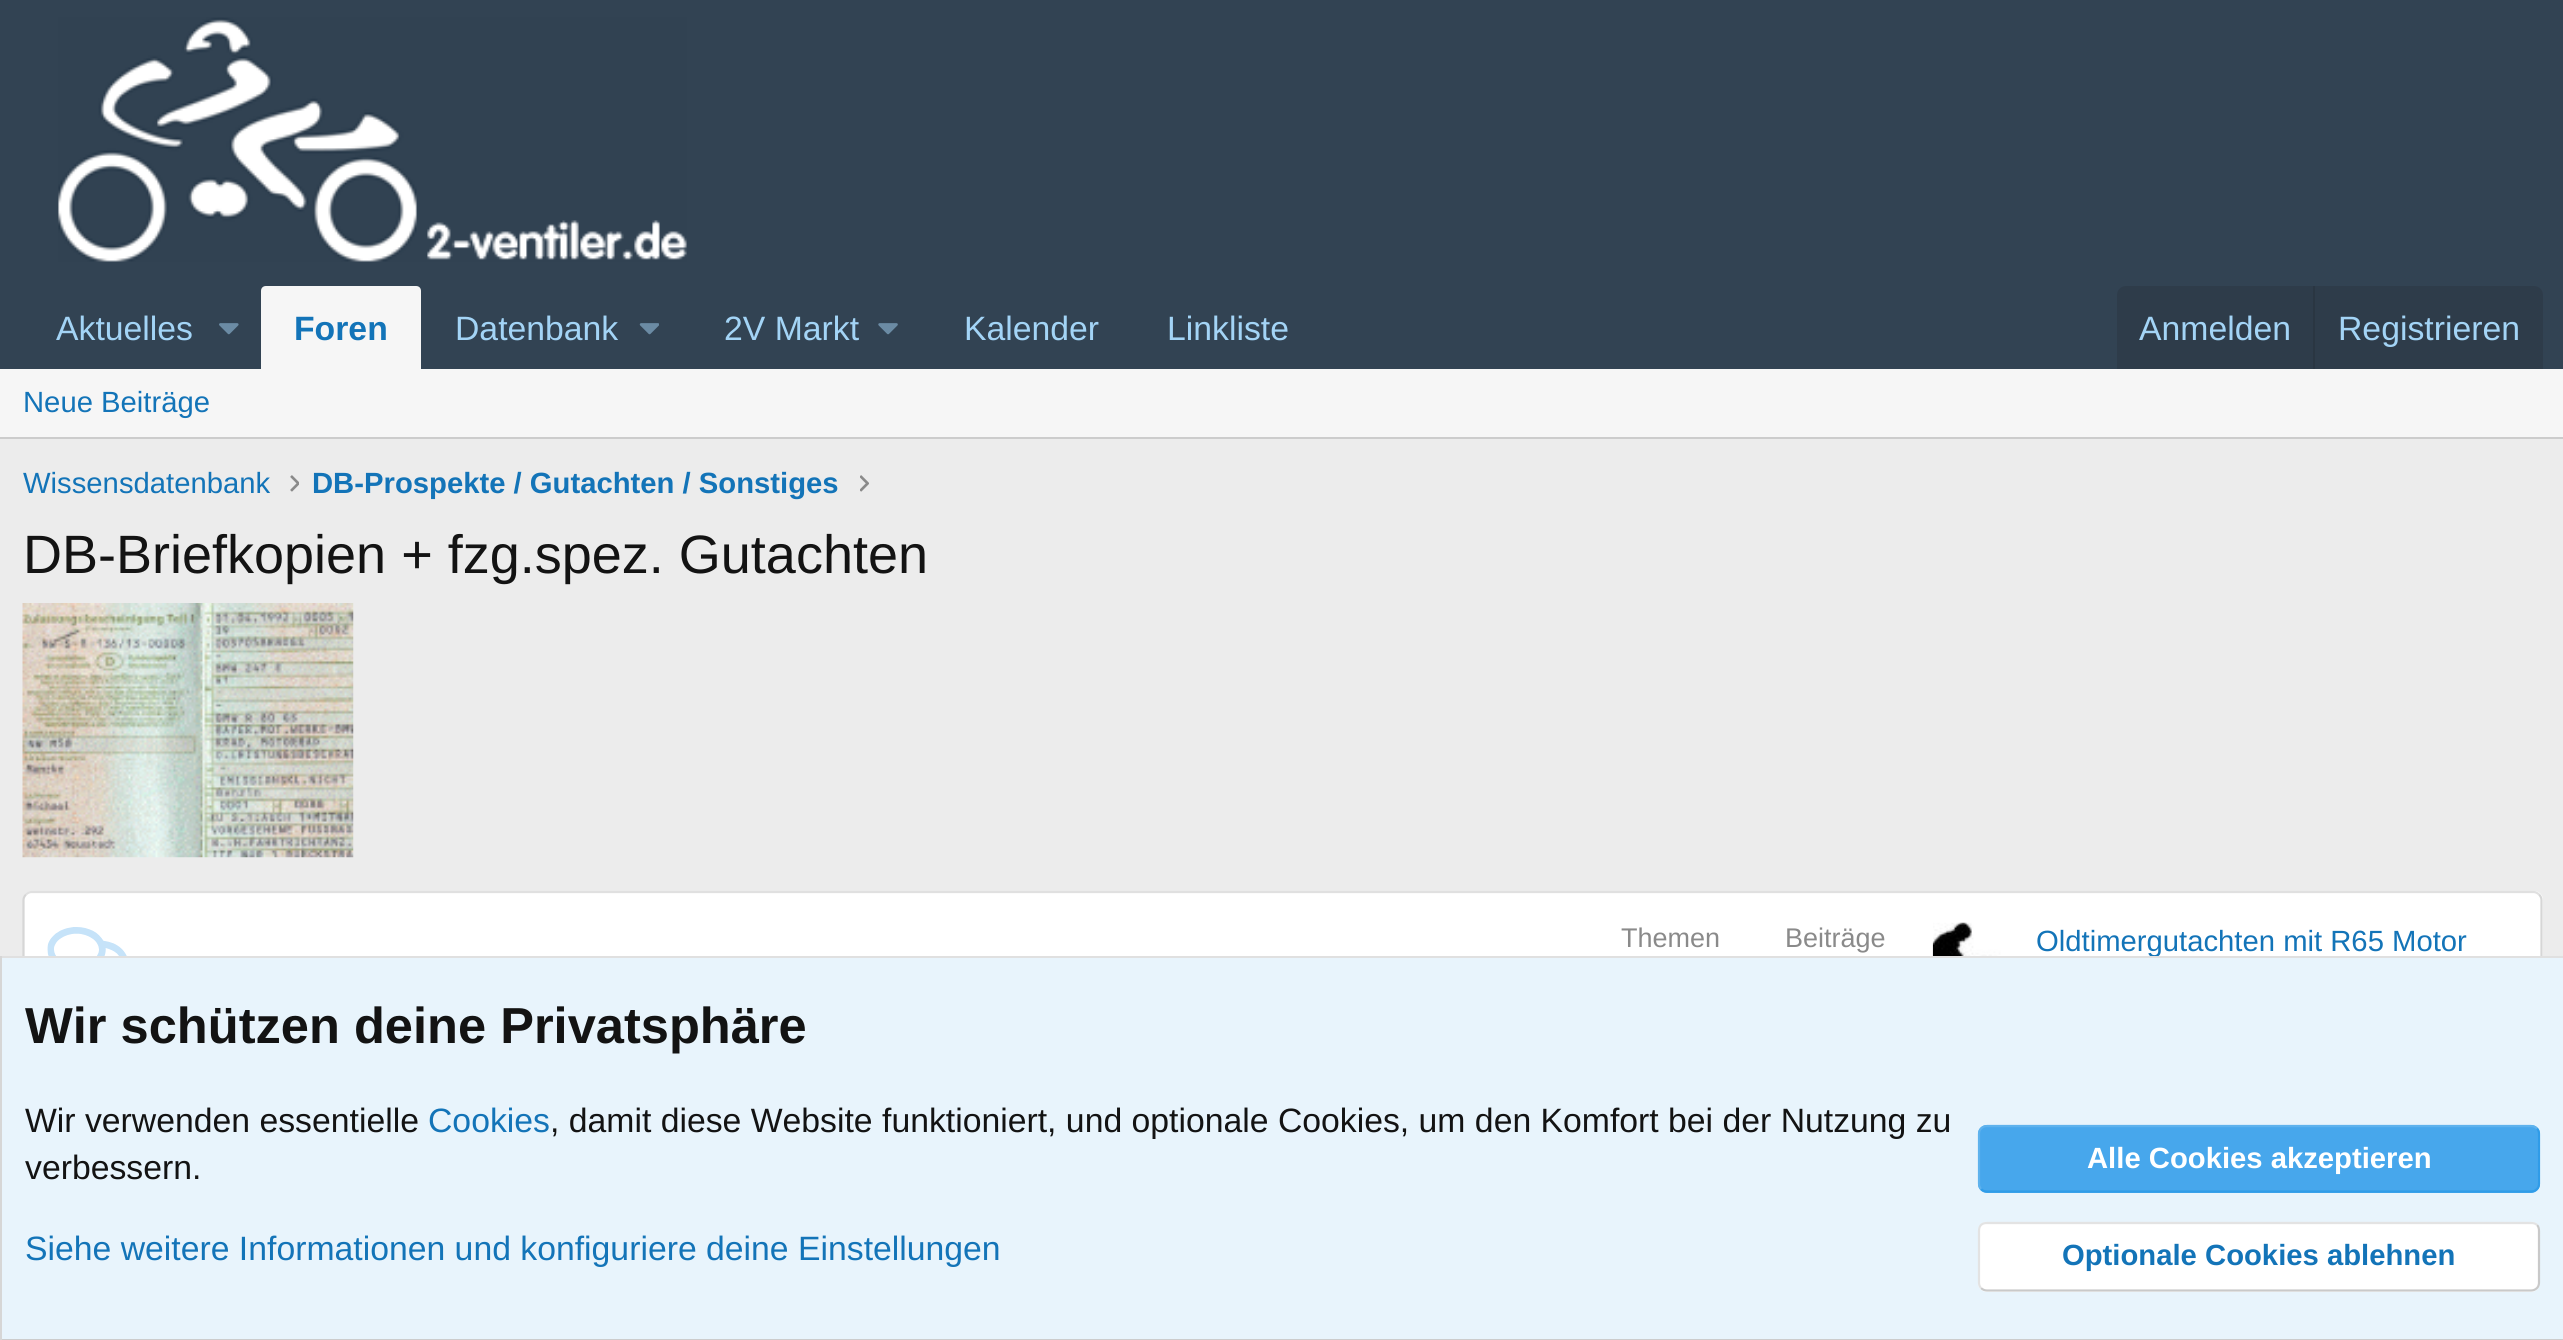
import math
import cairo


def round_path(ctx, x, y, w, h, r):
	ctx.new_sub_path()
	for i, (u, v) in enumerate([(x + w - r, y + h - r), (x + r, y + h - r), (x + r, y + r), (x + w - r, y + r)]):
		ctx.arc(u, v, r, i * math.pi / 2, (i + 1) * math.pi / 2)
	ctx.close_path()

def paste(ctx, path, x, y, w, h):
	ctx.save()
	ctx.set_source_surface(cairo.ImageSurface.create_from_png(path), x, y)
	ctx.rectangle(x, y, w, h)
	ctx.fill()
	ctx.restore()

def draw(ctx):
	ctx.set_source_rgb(0.922, 0.922, 0.922)
	ctx.paint()
	ctx.set_source_rgb(0.196, 0.263, 0.325)
	ctx.rectangle(0, 0, 2563, 369)
	ctx.fill()
	paste(ctx, 'media/1.png', 58, 17, 629, 245)
	ctx.select_font_face('Liberation Sans')
	ctx.set_font_size(33.75)
	ctx.set_source_rgb(0.639, 0.831, 0.961)
	ctx.move_to(56, 340)
	ctx.show_text('Aktuelles')
	paste(ctx, 'media/2.png', 219, 323, 20, 12)
	ctx.set_source_rgb(0.961, 0.961, 0.961)
	ctx.new_path()
	ctx.move_to(266, 286)
	ctx.line_to(416, 286)
	ctx.curve_to(419, 286, 421, 288, 421, 291)
	ctx.line_to(421, 369)
	ctx.line_to(261, 369)
	ctx.line_to(261, 291)
	ctx.curve_to(261, 288, 263, 286, 266, 286)
	ctx.close_path()
	ctx.fill()
	ctx.select_font_face('Liberation Sans', cairo.FONT_SLANT_NORMAL, cairo.FONT_WEIGHT_BOLD)
	ctx.set_source_rgb(0.078, 0.455, 0.722)
	ctx.move_to(294, 340)
	ctx.show_text('Foren')
	ctx.select_font_face('Liberation Sans')
	ctx.set_source_rgb(0.639, 0.831, 0.961)
	ctx.move_to(455, 340)
	ctx.show_text('Datenbank')
	paste(ctx, 'media/3.png', 639, 323, 20, 12)
	ctx.move_to(724, 340)
	ctx.show_text('2V Markt')
	paste(ctx, 'media/4.png', 878, 323, 20, 12)
	ctx.move_to(964, 340)
	ctx.show_text('Kalender')
	ctx.move_to(1167, 340)
	ctx.show_text('Linkliste')
	ctx.set_source_rgb(0.18, 0.235, 0.29)
	ctx.new_path()
	ctx.move_to(2126, 286)
	ctx.line_to(2534, 286)
	ctx.curve_to(2539, 286, 2543, 290, 2543, 295)
	ctx.line_to(2543, 369)
	ctx.line_to(2117, 369)
	ctx.line_to(2117, 295)
	ctx.curve_to(2117, 290, 2121, 286, 2126, 286)
	ctx.close_path()
	ctx.fill()
	ctx.set_source_rgb(0.639, 0.831, 0.961)
	ctx.move_to(2139, 340)
	ctx.show_text('Anmelden')
	ctx.set_source_rgb(0.165, 0.212, 0.259)
	ctx.rectangle(2313, 286, 2, 83)
	ctx.fill()
	ctx.set_source_rgb(0.639, 0.831, 0.961)
	ctx.move_to(2338, 340)
	ctx.show_text('Registrieren')
	ctx.set_source_rgb(0.961, 0.961, 0.961)
	ctx.rectangle(0, 369, 2563, 68)
	ctx.fill()
	ctx.set_source_rgb(0.8, 0.8, 0.8)
	ctx.rectangle(0, 437, 2563, 2)
	ctx.fill()
	ctx.set_font_size(29.25)
	ctx.set_source_rgb(0.078, 0.455, 0.722)
	ctx.move_to(23, 412)
	ctx.show_text('Neue Beiträge')
	ctx.move_to(23, 493)
	ctx.show_text('Wissensdatenbank')
	paste(ctx, 'media/5.png', 290, 475, 9, 17)
	ctx.select_font_face('Liberation Sans', cairo.FONT_SLANT_NORMAL, cairo.FONT_WEIGHT_BOLD)
	ctx.move_to(312, 493)
	ctx.show_text('DB-Prospekte / Gutachten / Sonstiges')
	paste(ctx, 'media/6.png', 860, 475, 9, 17)
	ctx.select_font_face('Liberation Sans')
	ctx.set_font_size(54)
	ctx.set_source_rgb(0.078, 0.078, 0.078)
	ctx.move_to(23, 573)
	ctx.show_text('DB-Briefkopien + fzg.spez. Gutachten')
	paste(ctx, 'media/7.png', 22, 603, 332, 255)
	ctx.set_source_rgb(1, 1, 1)
	round_path(ctx, 23, 891, 2520, 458, 9)
	ctx.fill()
	ctx.new_path()
	ctx.move_to(26, 894.5)
	ctx.curve_to(27.5, 893, 29.5, 892, 31.5, 892)
	ctx.line_to(2533.5, 892)
	ctx.curve_to(2535.5, 892, 2537.5, 893, 2539, 894.5)
	ctx.set_source_rgb(0.878, 0.878, 0.878)
	ctx.set_line_width(2.2)
	ctx.stroke()
	ctx.new_path()
	ctx.move_to(2539, 894.5)
	ctx.curve_to(2540.5, 896, 2541.5, 898, 2541.5, 900)
	ctx.line_to(2541.5, 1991)
	ctx.curve_to(2541.5, 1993.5, 2540.5, 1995.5, 2539, 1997)
	ctx.set_source_rgb(0.839, 0.839, 0.839)
	ctx.stroke()
	ctx.new_path()
	ctx.move_to(26, 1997)
	ctx.curve_to(24.5, 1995.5, 23.5, 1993.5, 23.5, 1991)
	ctx.line_to(23.5, 900)
	ctx.curve_to(23.5, 898, 24.5, 896, 26, 894.5)
	ctx.stroke()
	paste(ctx, 'media/8.png', 47, 927, 80, 29)
	ctx.set_font_size(27)
	ctx.set_source_rgb(0.541, 0.541, 0.541)
	ctx.move_to(1621, 947)
	ctx.show_text('Themen')
	ctx.move_to(1785, 947)
	ctx.show_text('Beiträge')
	paste(ctx, 'media/9.png', 1932, 922, 81, 34)
	ctx.set_font_size(29.25)
	ctx.set_source_rgb(0.078, 0.455, 0.722)
	ctx.move_to(2036, 951)
	ctx.show_text('Oldtimergutachten mit R65 Motor')
	ctx.set_source_rgb(0.91, 0.957, 0.988)
	ctx.rectangle(2, 958, 2561, 381)
	ctx.fill()
	ctx.set_source_rgb(0.878, 0.878, 0.878)
	ctx.rectangle(0, 956, 2563, 2)
	ctx.fill()
	ctx.set_source_rgb(0.8, 0.8, 0.8)
	ctx.rectangle(0, 1339, 2563, 1)
	ctx.fill()
	ctx.set_source_rgb(0.839, 0.839, 0.839)
	ctx.rectangle(0, 956, 2, 384)
	ctx.fill()
	ctx.select_font_face('Liberation Sans', cairo.FONT_SLANT_NORMAL, cairo.FONT_WEIGHT_BOLD)
	ctx.set_font_size(50.6)
	ctx.set_source_rgb(0.078, 0.078, 0.078)
	ctx.move_to(25, 1043)
	ctx.show_text('Wir schützen deine Privatsphäre')
	ctx.select_font_face('Liberation Sans')
	ctx.set_font_size(33.75)
	ctx.move_to(25, 1132)
	ctx.show_text('Wir verwenden essentielle')
	ctx.set_source_rgb(0.078, 0.455, 0.722)
	ctx.move_to(428, 1132)
	ctx.show_text('Cookies')
	ctx.set_source_rgb(0.078, 0.078, 0.078)
	ctx.move_to(550, 1132)
	ctx.show_text(', damit diese Website funktioniert, und optionale Cookies, um den Komfort bei der Nutzung zu')
	ctx.move_to(25, 1179)
	ctx.show_text('verbessern.')
	ctx.set_source_rgb(0.078, 0.455, 0.722)
	ctx.move_to(25, 1260)
	ctx.show_text('Siehe weitere Informationen und konfiguriere deine Einstellungen')
	ctx.set_source_rgb(0.278, 0.655, 0.922)
	round_path(ctx, 1978, 1125, 562, 68, 9)
	ctx.fill()
	ctx.new_path()
	ctx.move_to(2537, 1128.5)
	ctx.curve_to(2538.5, 1130, 2539, 1132, 2539, 1134)
	ctx.line_to(2539, 1183.5)
	ctx.curve_to(2539, 1185.5, 2538.5, 1187.5, 2537, 1189)
	ctx.curve_to(2535.5, 1190.5, 2533.5, 1191.5, 2531, 1191.5)
	ctx.line_to(1987, 1191.5)
	ctx.curve_to(1984.5, 1191.5, 1982.5, 1190.5, 1981, 1189)
	ctx.set_source_rgb(0.188, 0.612, 0.91)
	ctx.stroke()
	ctx.new_path()
	ctx.move_to(1981, 1189)
	ctx.curve_to(1979.5, 1187.5, 1979, 1185.5, 1979, 1183.5)
	ctx.line_to(1979, 1134)
	ctx.curve_to(1979, 1132, 1979.5, 1130, 1981, 1128.5)
	ctx.curve_to(1982.5, 1127, 1984.5, 1126, 1987, 1126)
	ctx.line_to(2531, 1126)
	ctx.curve_to(2533.5, 1126, 2535.5, 1127, 2537, 1128.5)
	ctx.set_source_rgb(0.369, 0.698, 0.929)
	ctx.stroke()
	ctx.select_font_face('Liberation Sans', cairo.FONT_SLANT_NORMAL, cairo.FONT_WEIGHT_BOLD)
	ctx.set_font_size(29.25)
	ctx.set_source_rgb(1, 1, 1)
	ctx.move_to(2087, 1168)
	ctx.show_text('Alle Cookies akzeptieren')
	round_path(ctx, 1978, 1222, 562, 70, 9)
	ctx.fill()
	ctx.new_path()
	ctx.move_to(2537, 1225)
	ctx.curve_to(2538.5, 1226.5, 2539, 1228.5, 2539, 1231)
	ctx.line_to(2539, 1282.5)
	ctx.curve_to(2539, 1284.5, 2538.5, 1286.5, 2537, 1288)
	ctx.curve_to(2535.5, 1289.5, 2533.5, 1290.5, 2531, 1290.5)
	ctx.line_to(1987, 1290.5)
	ctx.curve_to(1984.5, 1290.5, 1982.5, 1289.5, 1981, 1288)
	ctx.set_source_rgb(0.788, 0.788, 0.788)
	ctx.stroke()
	ctx.new_path()
	ctx.move_to(1981, 1288)
	ctx.curve_to(1979.5, 1286.5, 1979, 1284.5, 1979, 1282.5)
	ctx.line_to(1979, 1231)
	ctx.curve_to(1979, 1228.5, 1979.5, 1226.5, 1981, 1225)
	ctx.curve_to(1982.5, 1223.5, 1984.5, 1223, 1987, 1223)
	ctx.line_to(2531, 1223)
	ctx.curve_to(2533.5, 1223, 2535.5, 1223.5, 2537, 1225)
	ctx.set_source_rgb(0.89, 0.89, 0.89)
	ctx.stroke()
	ctx.set_source_rgb(0.078, 0.455, 0.722)
	ctx.move_to(2062, 1265)
	ctx.show_text('Optionale Cookies ablehnen')


surface = cairo.ImageSurface(cairo.FORMAT_RGB24, 2563, 1340)
ctx = cairo.Context(surface)
options = cairo.FontOptions()
options.set_hint_metrics(cairo.HINT_METRICS_OFF)
options.set_hint_style(cairo.HINT_STYLE_NONE)
ctx.set_font_options(options)
ctx.set_miter_limit(4)
draw(ctx)
surface.write_to_png('image.png')
